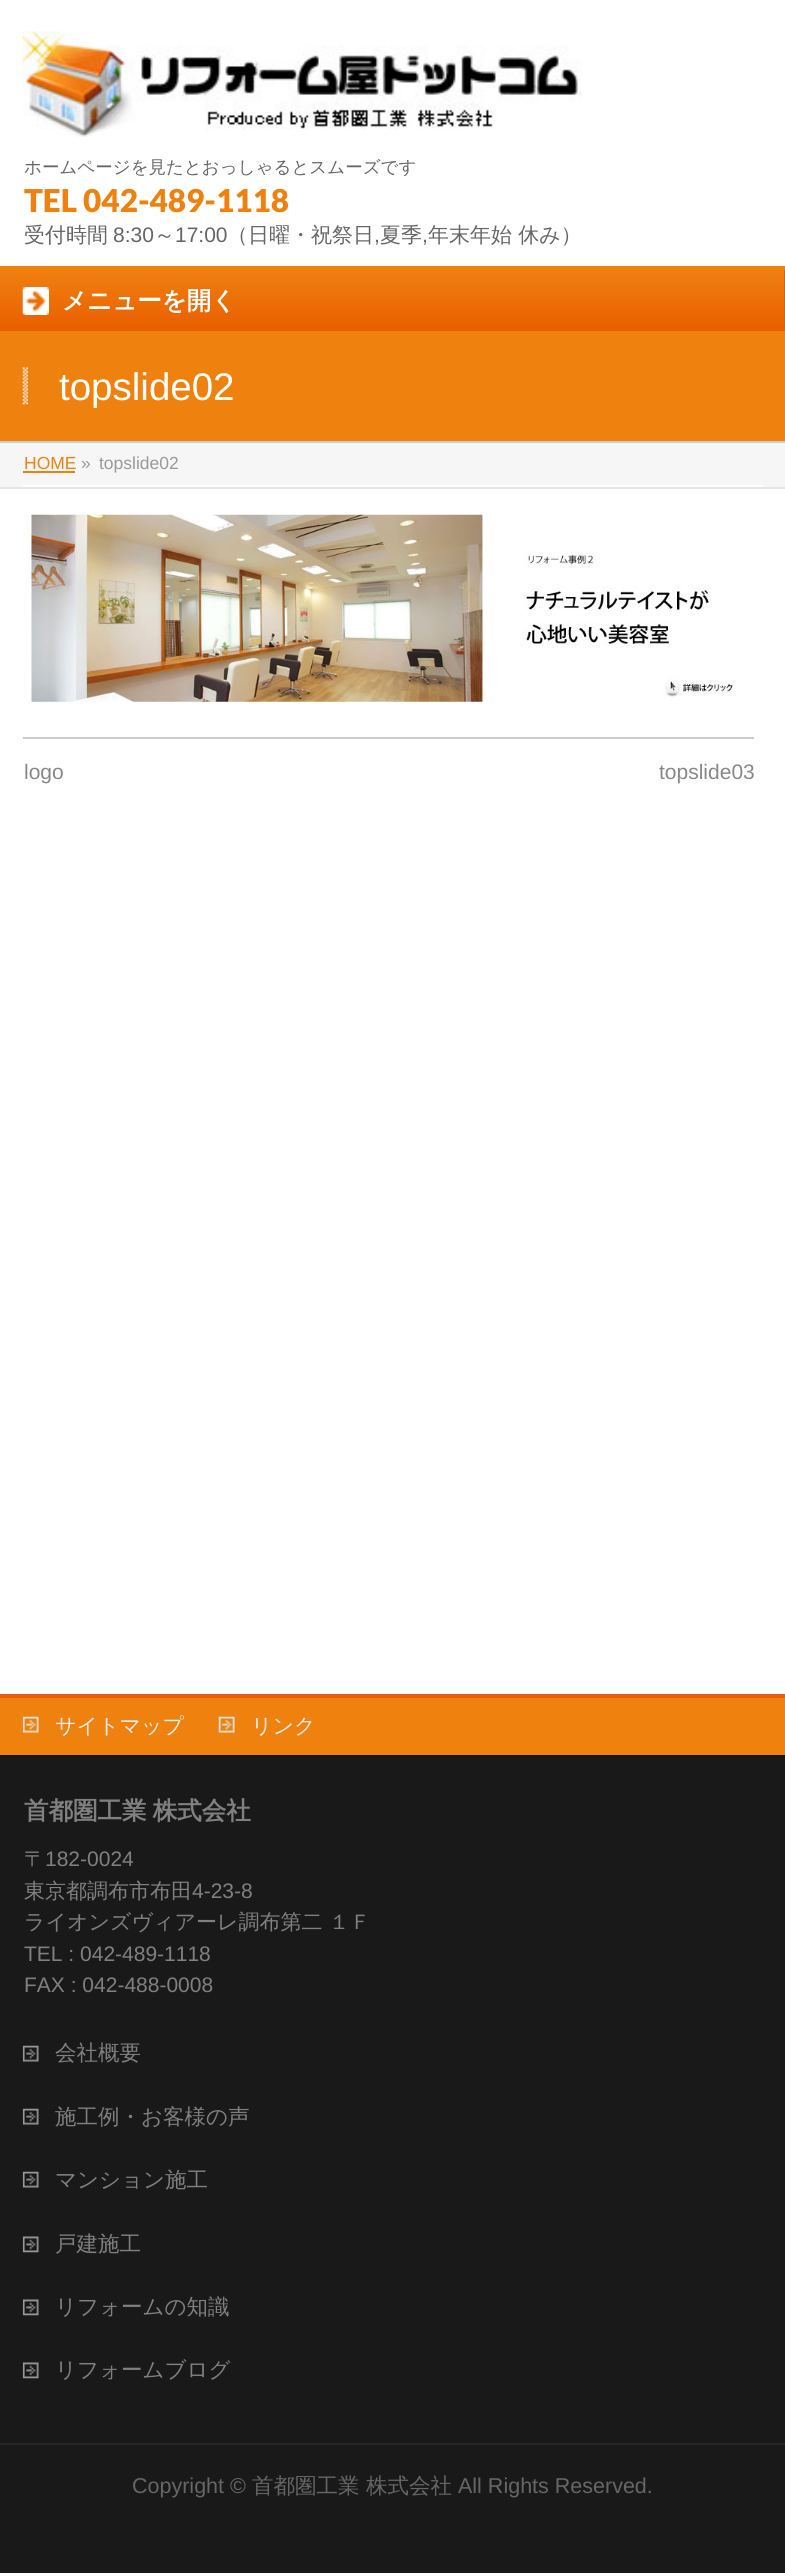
import math
import cairo


def write_spaced(ctx, x, y, s, letter, word):
	ctx.move_to(x, y)
	for ch in s:
		ctx.show_text(ch)
		ctx.rel_move_to(letter + word * (ch == ' '), 0)

def paste(ctx, path, x, y, w, h):
	ctx.save()
	ctx.set_source_surface(cairo.ImageSurface.create_from_png(path), x, y)
	ctx.rectangle(x, y, w, h)
	ctx.fill()
	ctx.restore()

def draw(ctx):
	ctx.set_source_rgb(1, 1, 1)
	ctx.paint()
	paste(ctx, 'media/1.png', 22, 31, 560, 106)
	ctx.select_font_face('WenQuanYi Zen Hei Medium')
	ctx.set_font_size(17.5)
	ctx.set_source_rgb(0.4, 0.4, 0.4)
	ctx.move_to(24, 173)
	ctx.show_text('ホームページを見たとおっしゃるとスムーズです')
	ctx.select_font_face('Lato Black')
	ctx.set_font_size(31.5)
	ctx.set_source_rgb(0.937, 0.506, 0.059)
	ctx.move_to(24, 212)
	ctx.show_text('TEL 042-489-1118')
	ctx.select_font_face('WenQuanYi Zen Hei Medium')
	ctx.set_font_size(21)
	ctx.set_source_rgb(0.4, 0.4, 0.4)
	ctx.move_to(24, 242)
	ctx.show_text('受付時間')
	ctx.select_font_face('Liberation Sans')
	ctx.move_to(113, 242)
	ctx.show_text('8:30')
	ctx.select_font_face('WenQuanYi Zen Hei Medium')
	ctx.move_to(154, 242)
	ctx.show_text('～')
	ctx.select_font_face('Liberation Sans')
	ctx.move_to(175, 242)
	ctx.show_text('17:00')
	ctx.select_font_face('WenQuanYi Zen Hei Medium')
	for x, y, s in [
		(227, 242, '（日曜・祝祭日'),
		(380, 242, '夏季'),
		(428, 242, '年末年始 休み）'),
	]:
		ctx.move_to(x, y)
		ctx.show_text(s)
	ctx.select_font_face('Liberation Sans')
	ctx.move_to(374, 242)
	ctx.show_text(',')
	ctx.move_to(422, 242)
	ctx.show_text(',')
	ctx.set_source_rgb(0.937, 0.506, 0.059)
	ctx.rectangle(0, 266, 785, 4)
	ctx.fill()
	gradient = cairo.LinearGradient(392, 269, 392, 331)
	gradient.add_color_stop_rgba(0, 0.937, 0.506, 0.059, 1)
	gradient.add_color_stop_rgba(1, 0.918, 0.365, 0, 1)
	ctx.set_source(gradient)
	ctx.rectangle(0, 270, 784, 61)
	ctx.fill()
	ctx.set_source_rgb(0.918, 0.365, 0)
	ctx.rectangle(784, 270, 1, 61)
	ctx.fill()
	paste(ctx, 'media/2.png', 22, 287, 27, 28)
	ctx.select_font_face('WenQuanYi Zen Hei', cairo.FONT_SLANT_NORMAL, cairo.FONT_WEIGHT_BOLD)
	ctx.set_font_size(24.5)
	ctx.set_source_rgb(1, 1, 1)
	ctx.move_to(62, 309)
	ctx.show_text('メニューを開く')
	ctx.set_source_rgb(0.937, 0.506, 0.059)
	ctx.rectangle(0, 331, 785, 110)
	ctx.fill()
	ctx.set_source_rgb(0.8, 0.8, 0.8)
	ctx.rectangle(0, 441, 785, 2)
	ctx.fill()
	paste(ctx, 'media/3.png', 22, 367, 6, 38)
	ctx.select_font_face('Liberation Sans')
	ctx.set_font_size(38.5)
	ctx.set_source_rgb(1, 1, 1)
	ctx.move_to(59, 400)
	ctx.show_text('topslide02')
	ctx.set_source_rgb(0.961, 0.961, 0.961)
	ctx.rectangle(0, 443, 785, 44)
	ctx.fill()
	ctx.set_source_rgb(0.898, 0.898, 0.898)
	ctx.rectangle(0, 487, 785, 2)
	ctx.fill()
	ctx.set_source_rgb(1, 1, 1)
	ctx.rectangle(23, 485, 740, 2)
	ctx.fill()
	ctx.set_font_size(17.5)
	ctx.set_source_rgb(0.937, 0.506, 0.059)
	ctx.move_to(24, 469)
	ctx.show_text('HOME')
	ctx.rectangle(23, 471, 52, 2)
	ctx.fill()
	ctx.set_source_rgb(0.6, 0.6, 0.6)
	ctx.move_to(81, 469)
	ctx.show_text('»')
	ctx.move_to(99, 469)
	ctx.show_text('topslide02')
	paste(ctx, 'media/4.png', 31, 514, 703, 188)
	ctx.set_source_rgb(0.8, 0.8, 0.8)
	ctx.rectangle(23, 737, 731, 2)
	ctx.fill()
	ctx.set_font_size(21)
	ctx.set_source_rgb(0.533, 0.533, 0.533)
	ctx.move_to(24, 779)
	ctx.show_text('logo')
	ctx.move_to(659, 779)
	ctx.show_text('topslide03')
	ctx.set_source_rgb(0.937, 0.506, 0.059)
	ctx.rectangle(0, 1698, 785, 57)
	ctx.fill()
	ctx.set_source_rgb(0.918, 0.365, 0)
	ctx.rectangle(0, 1694, 785, 4)
	ctx.fill()
	paste(ctx, 'media/5.png', 22, 1716, 17, 17)
	ctx.select_font_face('WenQuanYi Zen Hei Medium')
	ctx.set_source_rgb(0.937, 0.937, 0.937)
	ctx.move_to(55, 1733)
	ctx.show_text('サイトマップ')
	paste(ctx, 'media/6.png', 218, 1716, 17, 17)
	ctx.move_to(251, 1733)
	ctx.show_text('リンク')
	ctx.set_source_rgb(0.098, 0.098, 0.098)
	ctx.rectangle(0, 1757, 785, 686)
	ctx.fill()
	ctx.set_source_rgb(0.082, 0.082, 0.082)
	ctx.rectangle(0, 1755, 785, 2)
	ctx.fill()
	ctx.select_font_face('WenQuanYi Zen Hei', cairo.FONT_SLANT_NORMAL, cairo.FONT_WEIGHT_BOLD)
	ctx.set_font_size(24.5)
	ctx.set_source_rgb(0.502, 0.502, 0.502)
	write_spaced(ctx, 24, 1819, '首都圏工業 株式会社', 0, -1)
	ctx.select_font_face('WenQuanYi Zen Hei Medium')
	ctx.set_font_size(21)
	ctx.move_to(24, 1866)
	ctx.show_text('〒')
	ctx.select_font_face('Liberation Sans')
	ctx.move_to(45, 1866)
	ctx.show_text('182-0024')
	ctx.select_font_face('WenQuanYi Zen Hei Medium')
	ctx.move_to(24, 1898)
	ctx.show_text('東京都調布市布田')
	ctx.select_font_face('Liberation Sans')
	ctx.move_to(192, 1898)
	ctx.show_text('4-23-8')
	ctx.select_font_face('WenQuanYi Zen Hei Medium')
	ctx.move_to(24, 1929)
	ctx.show_text('ライオンズヴィアーレ調布第二 １Ｆ')
	ctx.select_font_face('Liberation Sans')
	ctx.move_to(24, 1961)
	ctx.show_text('TEL : 042-489-1118')
	ctx.move_to(24, 1992)
	ctx.show_text('FAX : 042-488-0008')
	paste(ctx, 'media/7.png', 22, 2045, 17, 17)
	ctx.select_font_face('WenQuanYi Zen Hei Medium')
	ctx.set_font_size(21.5)
	ctx.move_to(55, 2060)
	ctx.show_text('会社概要')
	paste(ctx, 'media/7.png', 22, 2108, 17, 17)
	ctx.move_to(55, 2124)
	ctx.show_text('施工例・お客様の声')
	paste(ctx, 'media/7.png', 22, 2171, 17, 17)
	ctx.move_to(55, 2187)
	ctx.show_text('マンション施工')
	paste(ctx, 'media/8.png', 22, 2236, 17, 17)
	ctx.move_to(55, 2251)
	ctx.show_text('戸建施工')
	paste(ctx, 'media/8.png', 22, 2299, 17, 17)
	ctx.move_to(55, 2314)
	ctx.show_text('リフォームの知識')
	paste(ctx, 'media/8.png', 22, 2362, 17, 17)
	ctx.move_to(55, 2377)
	ctx.show_text('リフォームブログ')
	ctx.set_source_rgb(0.098, 0.098, 0.098)
	ctx.rectangle(0, 2445, 785, 128)
	ctx.fill()
	ctx.set_source_rgb(0.149, 0.149, 0.149)
	ctx.rectangle(0, 2443, 785, 2)
	ctx.fill()
	ctx.select_font_face('Liberation Sans')
	ctx.set_source_rgb(0.4, 0.4, 0.4)
	ctx.move_to(132, 2493)
	ctx.show_text('Copyright ©')
	ctx.select_font_face('WenQuanYi Zen Hei Medium')
	ctx.move_to(252, 2493)
	ctx.show_text('首都圏工業 株式会社')
	ctx.select_font_face('Liberation Sans')
	ctx.move_to(458, 2493)
	ctx.show_text('All Rights Reserved.')


surface = cairo.ImageSurface(cairo.FORMAT_RGB24, 785, 2574)
ctx = cairo.Context(surface)
options = cairo.FontOptions()
options.set_hint_metrics(cairo.HINT_METRICS_OFF)
options.set_hint_style(cairo.HINT_STYLE_NONE)
ctx.set_font_options(options)
ctx.set_miter_limit(4)
draw(ctx)
surface.write_to_png('image.png')
